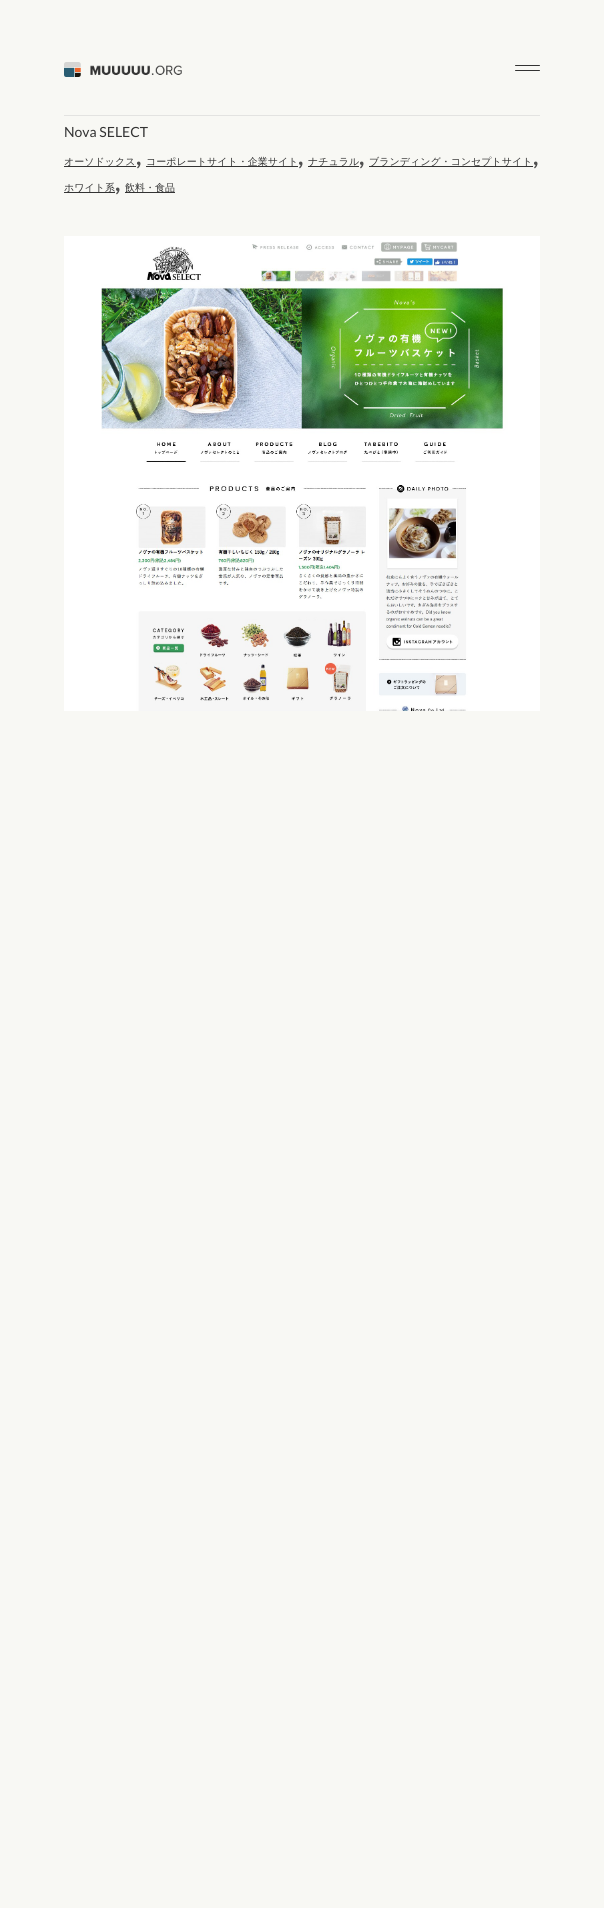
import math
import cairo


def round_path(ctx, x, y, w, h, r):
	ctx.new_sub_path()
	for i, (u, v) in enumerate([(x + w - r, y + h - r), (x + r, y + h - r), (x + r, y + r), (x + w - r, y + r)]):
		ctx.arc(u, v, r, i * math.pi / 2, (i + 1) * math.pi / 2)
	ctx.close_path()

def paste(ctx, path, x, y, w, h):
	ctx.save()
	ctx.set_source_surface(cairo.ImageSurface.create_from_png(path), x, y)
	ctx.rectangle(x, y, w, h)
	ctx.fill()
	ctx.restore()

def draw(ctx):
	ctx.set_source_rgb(0.969, 0.969, 0.957)
	ctx.paint()
	ctx.set_source_rgb(0.89, 0.89, 0.882)
	ctx.rectangle(64, 115, 476, 1)
	ctx.fill()
	paste(ctx, 'media/1.png', 64, 62, 118, 15)
	ctx.set_source_rgb(0.2, 0.2, 0.2)
	round_path(ctx, 515, 65, 25, 1, 0.5)
	ctx.fill()
	round_path(ctx, 515, 70, 25, 1, 0.5)
	ctx.fill()
	ctx.select_font_face('Lato')
	ctx.set_font_size(14)
	ctx.move_to(64, 137)
	ctx.show_text('Nova SELECT')
	ctx.rectangle(64, 166, 72, 1)
	ctx.fill()
	ctx.select_font_face('WenQuanYi Zen Hei Medium')
	ctx.set_font_size(10)
	ctx.move_to(64, 165)
	ctx.show_text('オーソドックス')
	ctx.select_font_face('Lato', cairo.FONT_SLANT_NORMAL, cairo.FONT_WEIGHT_BOLD)
	ctx.set_font_size(24)
	ctx.set_source_rgb(0.31, 0.31, 0.31)
	ctx.move_to(136, 165)
	ctx.show_text(',')
	ctx.set_source_rgb(0.2, 0.2, 0.2)
	ctx.rectangle(146, 166, 152, 1)
	ctx.fill()
	ctx.select_font_face('WenQuanYi Zen Hei Medium')
	ctx.set_font_size(10)
	ctx.move_to(146, 165)
	ctx.show_text('コーポレートサイト・企業サイト')
	ctx.select_font_face('Lato', cairo.FONT_SLANT_NORMAL, cairo.FONT_WEIGHT_BOLD)
	ctx.set_font_size(24)
	ctx.set_source_rgb(0.31, 0.31, 0.31)
	ctx.move_to(298, 165)
	ctx.show_text(',')
	ctx.set_source_rgb(0.2, 0.2, 0.2)
	ctx.rectangle(308, 166, 51, 1)
	ctx.fill()
	ctx.select_font_face('WenQuanYi Zen Hei Medium')
	ctx.set_font_size(10)
	ctx.move_to(308, 165)
	ctx.show_text('ナチュラル')
	ctx.select_font_face('Lato', cairo.FONT_SLANT_NORMAL, cairo.FONT_WEIGHT_BOLD)
	ctx.set_font_size(24)
	ctx.set_source_rgb(0.31, 0.31, 0.31)
	ctx.move_to(359, 165)
	ctx.show_text(',')
	ctx.set_source_rgb(0.2, 0.2, 0.2)
	ctx.rectangle(369, 166, 164, 1)
	ctx.fill()
	ctx.select_font_face('WenQuanYi Zen Hei Medium')
	ctx.set_font_size(10)
	ctx.move_to(369, 165)
	ctx.show_text('ブランディング・コンセプトサイト')
	ctx.select_font_face('Lato', cairo.FONT_SLANT_NORMAL, cairo.FONT_WEIGHT_BOLD)
	ctx.set_font_size(24)
	ctx.set_source_rgb(0.31, 0.31, 0.31)
	ctx.move_to(533, 165)
	ctx.show_text(',')
	ctx.set_source_rgb(0.2, 0.2, 0.2)
	ctx.rectangle(64, 192, 51, 1)
	ctx.fill()
	ctx.select_font_face('WenQuanYi Zen Hei Medium')
	ctx.set_font_size(10)
	ctx.move_to(64, 191)
	ctx.show_text('ホワイト系')
	ctx.select_font_face('Lato', cairo.FONT_SLANT_NORMAL, cairo.FONT_WEIGHT_BOLD)
	ctx.set_font_size(24)
	ctx.set_source_rgb(0.31, 0.31, 0.31)
	ctx.move_to(115, 191)
	ctx.show_text(',')
	ctx.set_source_rgb(0.2, 0.2, 0.2)
	ctx.rectangle(125, 192, 50, 1)
	ctx.fill()
	ctx.select_font_face('WenQuanYi Zen Hei Medium')
	ctx.set_font_size(10)
	ctx.move_to(125, 191)
	ctx.show_text('飲料・食品')
	paste(ctx, 'media/2.png', 64, 236, 476, 475)


surface = cairo.ImageSurface(cairo.FORMAT_RGB24, 604, 1908)
ctx = cairo.Context(surface)
options = cairo.FontOptions()
options.set_hint_metrics(cairo.HINT_METRICS_OFF)
options.set_hint_style(cairo.HINT_STYLE_NONE)
ctx.set_font_options(options)
ctx.set_miter_limit(4)
draw(ctx)
surface.write_to_png('image.png')
